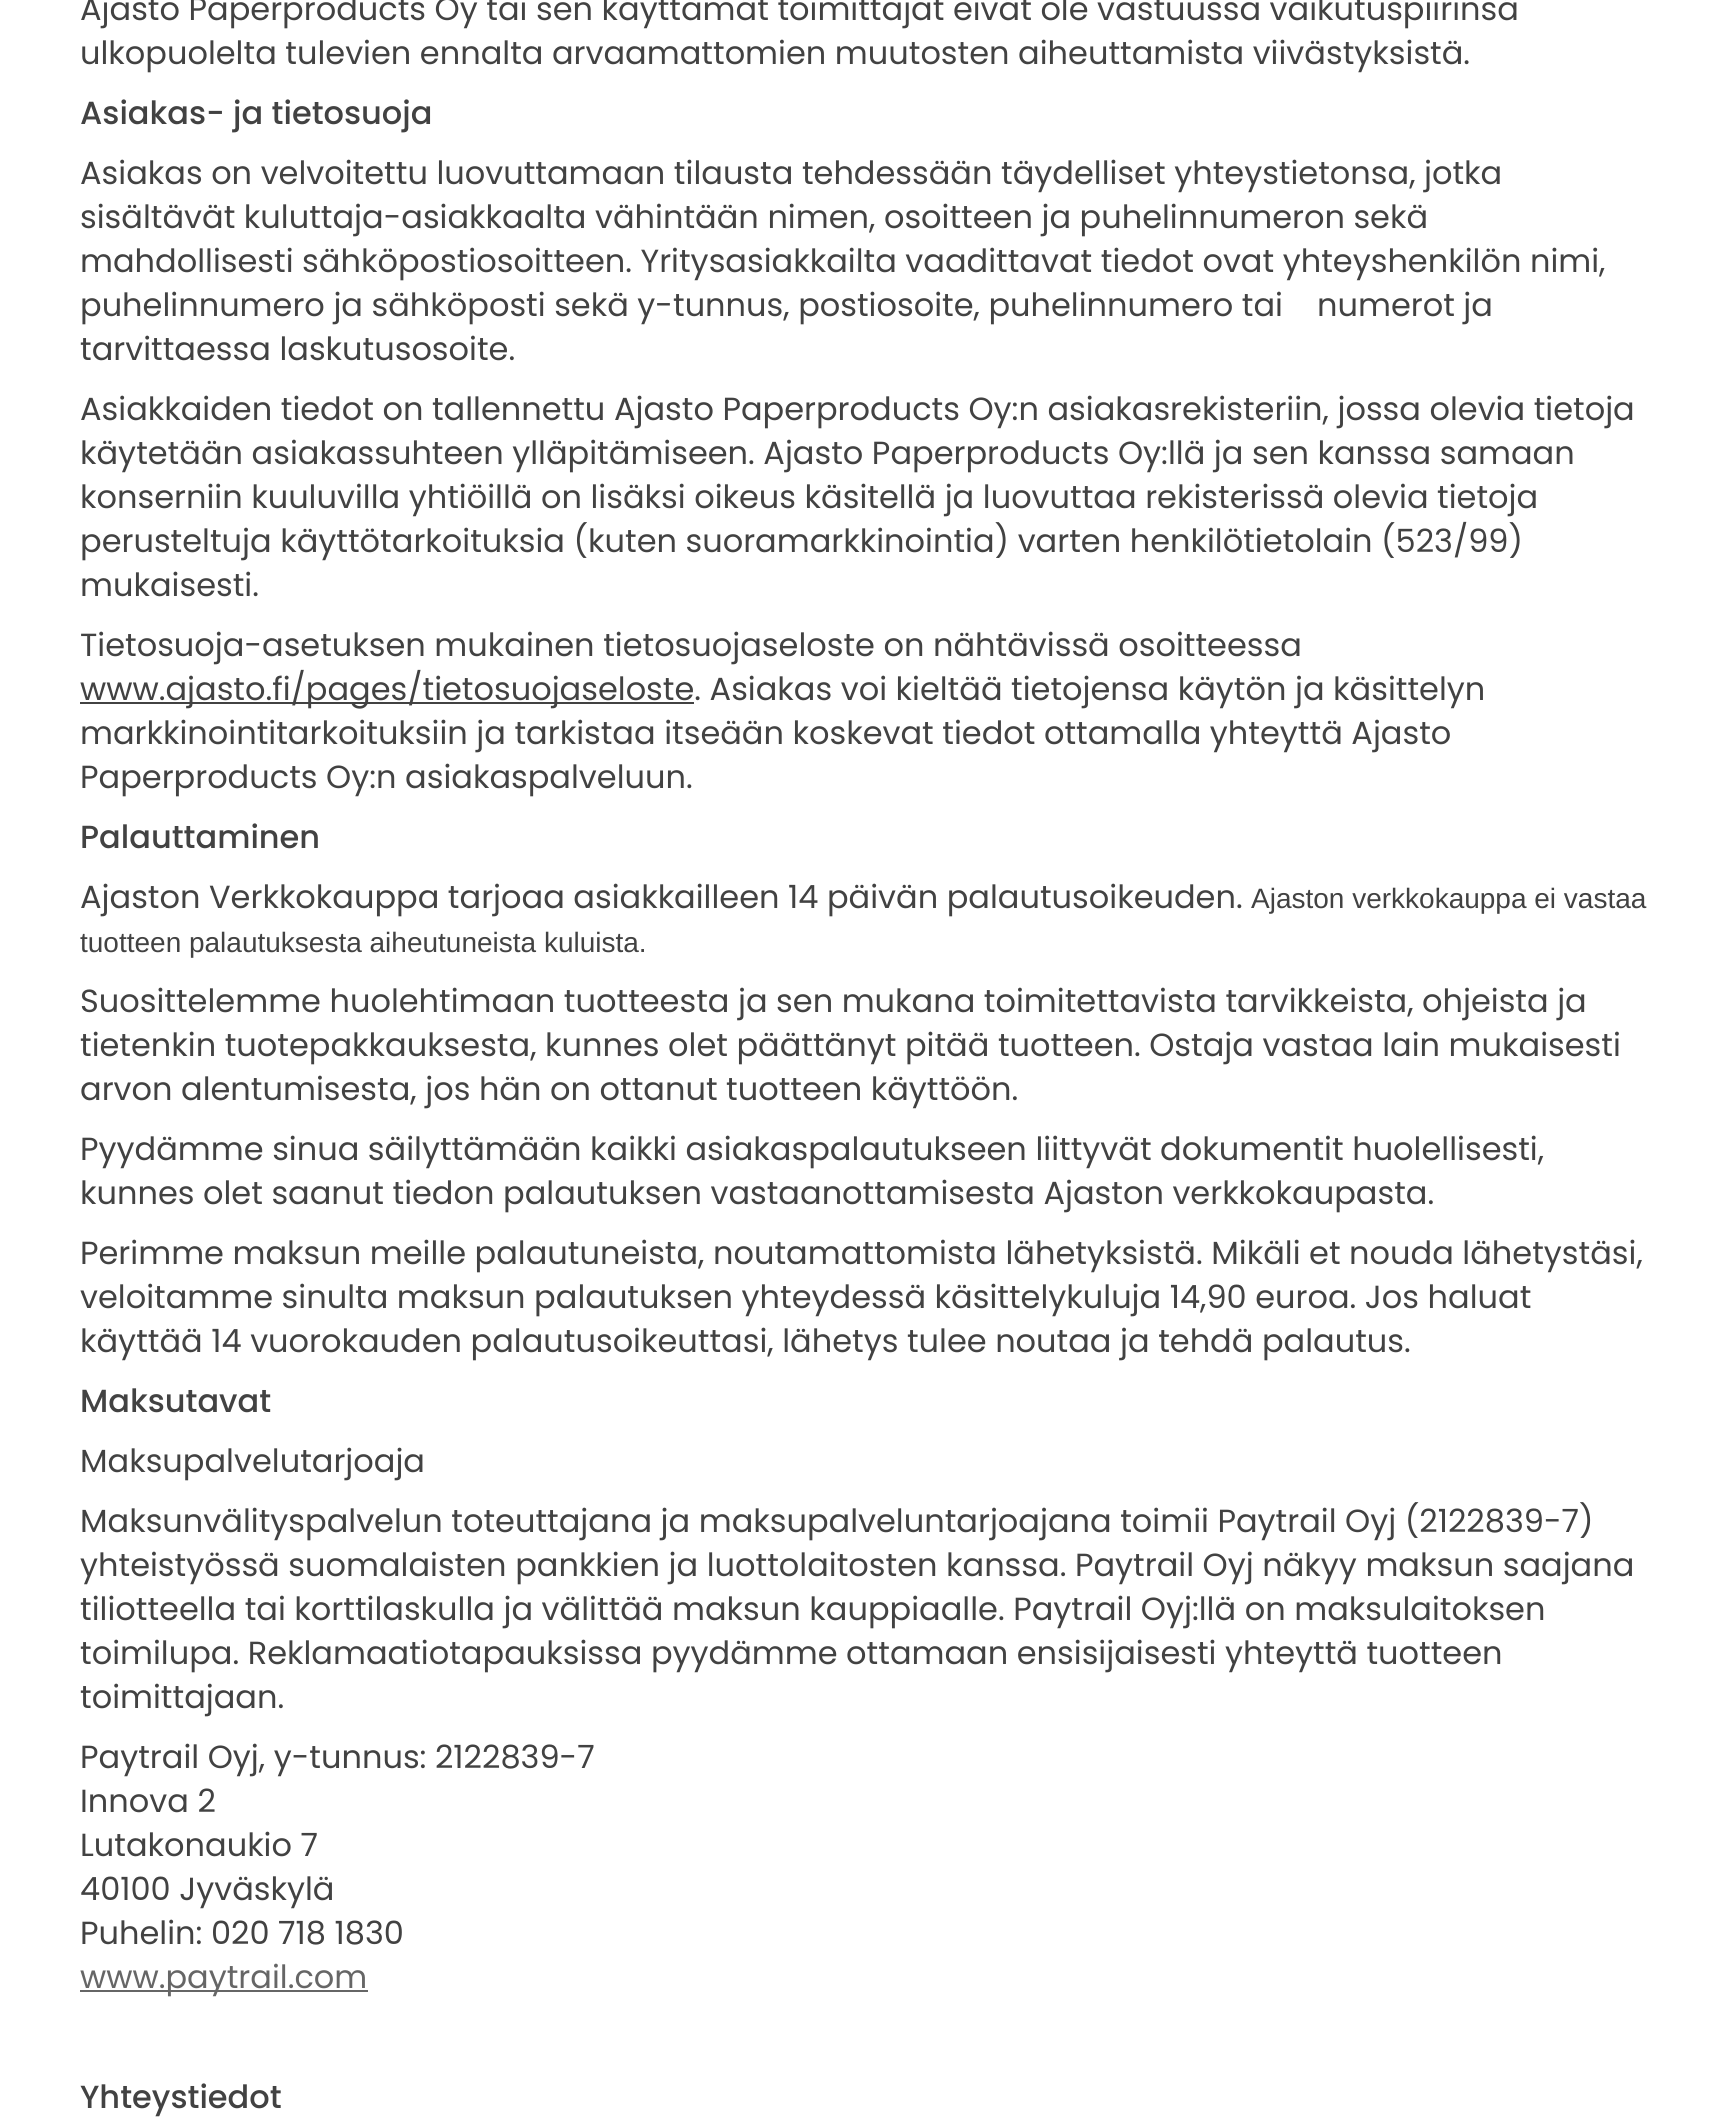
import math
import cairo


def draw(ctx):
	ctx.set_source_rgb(1, 1, 1)
	ctx.paint()
	ctx.select_font_face('Poppins')
	ctx.set_font_size(32)
	ctx.set_source_rgb(0.259, 0.259, 0.259)
	ctx.move_to(80, 20)
	ctx.show_text('Ajasto Paperproducts Oy tai sen käyttämät toimittajat eivät ole vastuussa vaikutuspiirinsä')
	ctx.move_to(80, 64)
	ctx.show_text('ulkopuolelta tulevien ennalta arvaamattomien muutosten aiheuttamista viivästyksistä.')
	ctx.select_font_face('Poppins Medium')
	ctx.move_to(80, 124)
	ctx.show_text('Asiakas- ja tietosuoja')
	ctx.select_font_face('Poppins')
	for x, y, s in [
		(80, 184, 'Asiakas on velvoitettu luovuttamaan tilausta tehdessään täydelliset yhteystietonsa, jotka'),
		(80, 228, 'sisältävät kuluttaja-asiakkaalta vähintään nimen, osoitteen ja puhelinnumeron sekä'),
		(80, 272, 'mahdollisesti sähköpostiosoitteen. Yritysasiakkailta vaadittavat tiedot ovat yhteyshenkilön nimi,'),
		(80, 316, 'puhelinnumero ja sähköposti sekä y-tunnus, postiosoite, puhelinnumero tai'),
		(1317, 316, 'numerot ja'),
		(80, 360, 'tarvittaessa laskutusosoite.'),
		(80, 420, 'Asiakkaiden tiedot on tallennettu Ajasto Paperproducts Oy:n asiakasrekisteriin, jossa olevia tietoja'),
		(80, 464, 'käytetään asiakassuhteen ylläpitämiseen. Ajasto Paperproducts Oy:llä ja sen kanssa samaan'),
		(80, 508, 'konserniin kuuluvilla yhtiöillä on lisäksi oikeus käsitellä ja luovuttaa rekisterissä olevia tietoja'),
		(80, 552, 'perusteltuja käyttötarkoituksia (kuten suoramarkkinointia) varten henkilötietolain (523/99)'),
		(80, 596, 'mukaisesti.'),
		(80, 656, 'Tietosuoja-asetuksen mukainen tietosuojaseloste on nähtävissä osoitteessa'),
	]:
		ctx.move_to(x, y)
		ctx.show_text(s)
	ctx.rectangle(80, 702, 614, 2)
	ctx.fill()
	for x, y, s in [
		(80, 700, 'www.ajasto.fi/pages/tietosuojaseloste. Asiakas voi kieltää tietojensa käytön ja käsittelyn'),
		(80, 744, 'markkinointitarkoituksiin ja tarkistaa itseään koskevat tiedot ottamalla yhteyttä Ajasto'),
		(80, 788, 'Paperproducts Oy:n asiakaspalveluun.'),
	]:
		ctx.move_to(x, y)
		ctx.show_text(s)
	ctx.select_font_face('Poppins Medium')
	ctx.move_to(80, 848)
	ctx.show_text('Palauttaminen')
	ctx.select_font_face('Poppins')
	ctx.move_to(80, 908)
	ctx.show_text('Ajaston Verkkokauppa tarjoaa asiakkailleen 14 päivän palautusoikeuden.')
	ctx.select_font_face('Liberation Sans')
	ctx.set_font_size(28)
	ctx.move_to(1251, 908)
	ctx.show_text('Ajaston verkkokauppa ei vastaa')
	ctx.move_to(80, 952)
	ctx.show_text('tuotteen palautuksesta aiheutuneista kuluista.')
	ctx.select_font_face('Poppins')
	ctx.set_font_size(32)
	for x, y, s in [
		(80, 1012, 'Suosittelemme huolehtimaan tuotteesta ja sen mukana toimitettavista tarvikkeista, ohjeista ja'),
		(80, 1056, 'tietenkin tuotepakkauksesta, kunnes olet päättänyt pitää tuotteen. Ostaja vastaa lain mukaisesti'),
		(80, 1100, 'arvon alentumisesta, jos hän on ottanut tuotteen käyttöön.'),
		(80, 1160, 'Pyydämme sinua säilyttämään kaikki asiakaspalautukseen liittyvät dokumentit huolellisesti,'),
		(80, 1204, 'kunnes olet saanut tiedon palautuksen vastaanottamisesta Ajaston verkkokaupasta.'),
		(80, 1264, 'Perimme maksun meille palautuneista, noutamattomista lähetyksistä. Mikäli et nouda lähetystäsi,'),
		(80, 1308, 'veloitamme sinulta maksun palautuksen yhteydessä käsittelykuluja 14,90 euroa. Jos haluat'),
		(80, 1352, 'käyttää 14 vuorokauden palautusoikeuttasi, lähetys tulee noutaa ja tehdä palautus.'),
	]:
		ctx.move_to(x, y)
		ctx.show_text(s)
	ctx.select_font_face('Poppins Medium')
	ctx.move_to(80, 1412)
	ctx.show_text('Maksutavat')
	ctx.select_font_face('Poppins')
	for x, y, s in [
		(80, 1472, 'Maksupalvelutarjoaja'),
		(80, 1532, 'Maksunvälityspalvelun toteuttajana ja maksupalveluntarjoajana toimii Paytrail Oyj (2122839-7)'),
		(80, 1576, 'yhteistyössä suomalaisten pankkien ja luottolaitosten kanssa. Paytrail Oyj näkyy maksun saajana'),
		(80, 1620, 'tiliotteella tai korttilaskulla ja välittää maksun kauppiaalle. Paytrail Oyj:llä on maksulaitoksen'),
		(80, 1664, 'toimilupa. Reklamaatiotapauksissa pyydämme ottamaan ensisijaisesti yhteyttä tuotteen'),
		(80, 1708, 'toimittajaan.'),
		(80, 1768, 'Paytrail Oyj, y-tunnus: 2122839-7'),
		(80, 1812, 'Innova 2'),
		(80, 1856, 'Lutakonaukio 7'),
		(80, 1900, '40100 Jyväskylä'),
		(80, 1944, 'Puhelin: 020 718 1830'),
	]:
		ctx.move_to(x, y)
		ctx.show_text(s)
	ctx.set_source_rgb(0.4, 0.4, 0.4)
	ctx.rectangle(80, 1990, 288, 2)
	ctx.fill()
	ctx.move_to(80, 1988)
	ctx.show_text('www.paytrail.com')
	ctx.select_font_face('Poppins Medium')
	ctx.set_source_rgb(0.259, 0.259, 0.259)
	ctx.move_to(80, 2108)
	ctx.show_text('Yhteystiedot')


surface = cairo.ImageSurface(cairo.FORMAT_RGB24, 1727, 2120)
ctx = cairo.Context(surface)
options = cairo.FontOptions()
options.set_hint_metrics(cairo.HINT_METRICS_OFF)
options.set_hint_style(cairo.HINT_STYLE_NONE)
ctx.set_font_options(options)
ctx.set_miter_limit(4)
draw(ctx)
surface.write_to_png('image.png')
